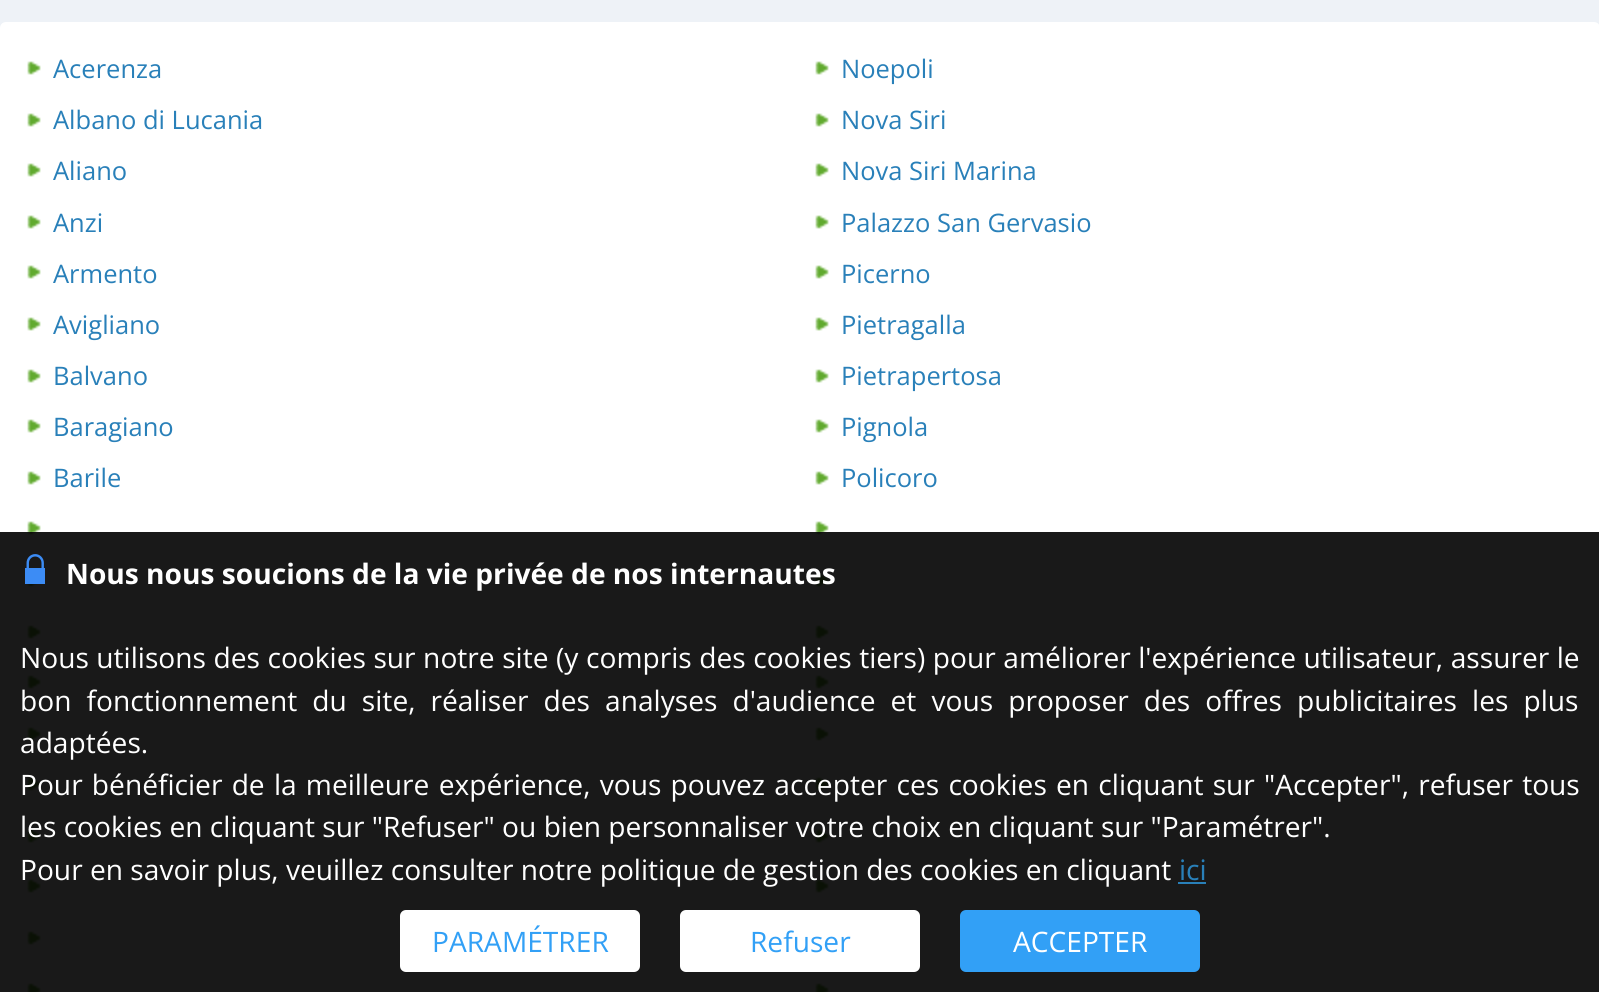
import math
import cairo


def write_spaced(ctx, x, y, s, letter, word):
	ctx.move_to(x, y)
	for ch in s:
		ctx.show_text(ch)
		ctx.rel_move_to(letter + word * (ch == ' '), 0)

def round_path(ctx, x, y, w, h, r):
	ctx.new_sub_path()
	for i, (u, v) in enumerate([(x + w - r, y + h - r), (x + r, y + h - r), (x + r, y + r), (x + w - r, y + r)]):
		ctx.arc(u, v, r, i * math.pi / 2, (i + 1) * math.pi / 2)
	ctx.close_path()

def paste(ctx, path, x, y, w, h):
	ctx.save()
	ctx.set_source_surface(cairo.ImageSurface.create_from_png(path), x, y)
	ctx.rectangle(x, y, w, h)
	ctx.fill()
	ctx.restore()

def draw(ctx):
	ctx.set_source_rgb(0.933, 0.949, 0.965)
	ctx.paint()
	ctx.set_source_rgb(1, 1, 1)
	round_path(ctx, 1, 23, 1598, 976, 5)
	ctx.fill_preserve()
	ctx.stroke()
	paste(ctx, 'media/1.png', 27, 61, 14, 14)
	ctx.select_font_face('Open Sans')
	ctx.set_font_size(25.5)
	ctx.set_source_rgb(0.161, 0.502, 0.725)
	ctx.move_to(53, 78)
	ctx.show_text('Acerenza')
	paste(ctx, 'media/1.png', 27, 113, 14, 14)
	ctx.move_to(53, 129)
	ctx.show_text('Albano di Lucania')
	paste(ctx, 'media/1.png', 27, 163, 14, 14)
	ctx.move_to(53, 180)
	ctx.show_text('Aliano')
	paste(ctx, 'media/1.png', 27, 215, 14, 14)
	ctx.move_to(53, 232)
	ctx.show_text('Anzi')
	paste(ctx, 'media/1.png', 27, 265, 14, 14)
	ctx.move_to(53, 283)
	ctx.show_text('Armento')
	paste(ctx, 'media/1.png', 27, 317, 14, 14)
	ctx.move_to(53, 334)
	ctx.show_text('Avigliano')
	paste(ctx, 'media/1.png', 27, 369, 14, 14)
	ctx.move_to(53, 385)
	ctx.show_text('Balvano')
	paste(ctx, 'media/1.png', 27, 419, 14, 14)
	ctx.move_to(53, 436)
	ctx.show_text('Baragiano')
	paste(ctx, 'media/1.png', 27, 471, 14, 14)
	ctx.move_to(53, 487)
	ctx.show_text('Barile')
	paste(ctx, 'media/1.png', 27, 521, 14, 14)
	paste(ctx, 'media/2.png', 27, 584, 11, 3)
	paste(ctx, 'media/1.png', 27, 625, 14, 14)
	paste(ctx, 'media/1.png', 27, 675, 14, 14)
	paste(ctx, 'media/1.png', 27, 727, 14, 14)
	paste(ctx, 'media/1.png', 27, 777, 14, 14)
	paste(ctx, 'media/1.png', 27, 829, 14, 14)
	paste(ctx, 'media/1.png', 27, 879, 14, 14)
	paste(ctx, 'media/1.png', 27, 931, 14, 14)
	paste(ctx, 'media/3.png', 27, 983, 14, 9)
	paste(ctx, 'media/1.png', 815, 61, 14, 14)
	ctx.move_to(841, 78)
	ctx.show_text('Noepoli')
	paste(ctx, 'media/1.png', 815, 113, 14, 14)
	ctx.move_to(841, 129)
	ctx.show_text('Nova Siri')
	paste(ctx, 'media/1.png', 815, 163, 14, 14)
	ctx.move_to(841, 180)
	ctx.show_text('Nova Siri Marina')
	paste(ctx, 'media/1.png', 815, 215, 14, 14)
	ctx.move_to(841, 232)
	ctx.show_text('Palazzo San Gervasio')
	paste(ctx, 'media/1.png', 815, 265, 14, 14)
	ctx.move_to(841, 283)
	ctx.show_text('Picerno')
	paste(ctx, 'media/1.png', 815, 317, 14, 14)
	ctx.move_to(841, 334)
	ctx.show_text('Pietragalla')
	paste(ctx, 'media/1.png', 815, 369, 14, 14)
	ctx.move_to(841, 385)
	ctx.show_text('Pietrapertosa')
	paste(ctx, 'media/1.png', 815, 419, 14, 14)
	ctx.move_to(841, 436)
	ctx.show_text('Pignola')
	paste(ctx, 'media/1.png', 815, 471, 14, 14)
	ctx.move_to(841, 487)
	ctx.show_text('Policoro')
	paste(ctx, 'media/1.png', 815, 521, 14, 14)
	paste(ctx, 'media/1.png', 815, 573, 14, 14)
	paste(ctx, 'media/1.png', 815, 625, 14, 14)
	paste(ctx, 'media/1.png', 815, 675, 14, 14)
	paste(ctx, 'media/1.png', 815, 727, 14, 14)
	paste(ctx, 'media/1.png', 815, 777, 14, 14)
	paste(ctx, 'media/1.png', 815, 829, 14, 14)
	paste(ctx, 'media/1.png', 815, 879, 14, 14)
	paste(ctx, 'media/3.png', 815, 983, 14, 9)
	ctx.set_source_rgba(0, 0, 0, 0.9)
	ctx.rectangle(0, 532, 1599, 460)
	ctx.fill()
	paste(ctx, 'media/4.png', 25, 554, 20, 30)
	ctx.select_font_face('Open Sans', cairo.FONT_SLANT_NORMAL, cairo.FONT_WEIGHT_BOLD)
	ctx.set_font_size(28.15)
	ctx.set_source_rgb(1, 1, 1)
	ctx.move_to(66, 584)
	ctx.show_text('Nous nous soucions de la vie privée de nos internautes')
	ctx.select_font_face('Open Sans')
	write_spaced(ctx, 20, 668, 'Nous utilisons des cookies sur notre site (y compris des cookies tiers) pour améliorer l\'expérience utilisateur, assurer le', 0, 0.2)
	write_spaced(ctx, 20, 711, 'bon fonctionnement du site, réaliser des analyses d\'audience et vous proposer des offres publicitaires les plus', 0, 7.75)
	ctx.move_to(20, 753)
	ctx.show_text('adaptées.')
	write_spaced(ctx, 20, 795, 'Pour bénéficier de la meilleure expérience, vous pouvez accepter ces cookies en cliquant sur "Accepter", refuser tous', 0, 1.9)
	ctx.move_to(20, 837)
	ctx.show_text('les cookies en cliquant sur "Refuser" ou bien personnaliser votre choix en cliquant sur "Paramétrer".')
	ctx.move_to(20, 880)
	ctx.show_text('Pour en savoir plus, veuillez consulter notre politique de gestion des cookies en cliquant')
	ctx.set_source_rgb(0.161, 0.502, 0.725)
	ctx.move_to(1179, 880)
	ctx.show_text('ici')
	ctx.rectangle(1178, 882, 28, 2)
	ctx.fill()
	ctx.set_source_rgb(1, 1, 1)
	round_path(ctx, 400, 910, 240, 62, 6)
	ctx.fill()
	ctx.set_source_rgb(0.196, 0.627, 0.961)
	ctx.move_to(432, 952)
	ctx.show_text('PARAMÉTRER')
	ctx.set_source_rgb(1, 1, 1)
	round_path(ctx, 680, 910, 240, 62, 6)
	ctx.fill()
	ctx.set_source_rgb(0.196, 0.627, 0.961)
	ctx.move_to(750, 952)
	ctx.show_text('Refuser')
	round_path(ctx, 960, 910, 240, 62, 6)
	ctx.fill()
	ctx.set_source_rgb(1, 1, 1)
	ctx.move_to(1013, 952)
	ctx.show_text('ACCEPTER')


surface = cairo.ImageSurface(cairo.FORMAT_RGB24, 1599, 992)
ctx = cairo.Context(surface)
options = cairo.FontOptions()
options.set_hint_metrics(cairo.HINT_METRICS_OFF)
options.set_hint_style(cairo.HINT_STYLE_NONE)
ctx.set_font_options(options)
ctx.set_miter_limit(4)
draw(ctx)
surface.write_to_png('image.png')
